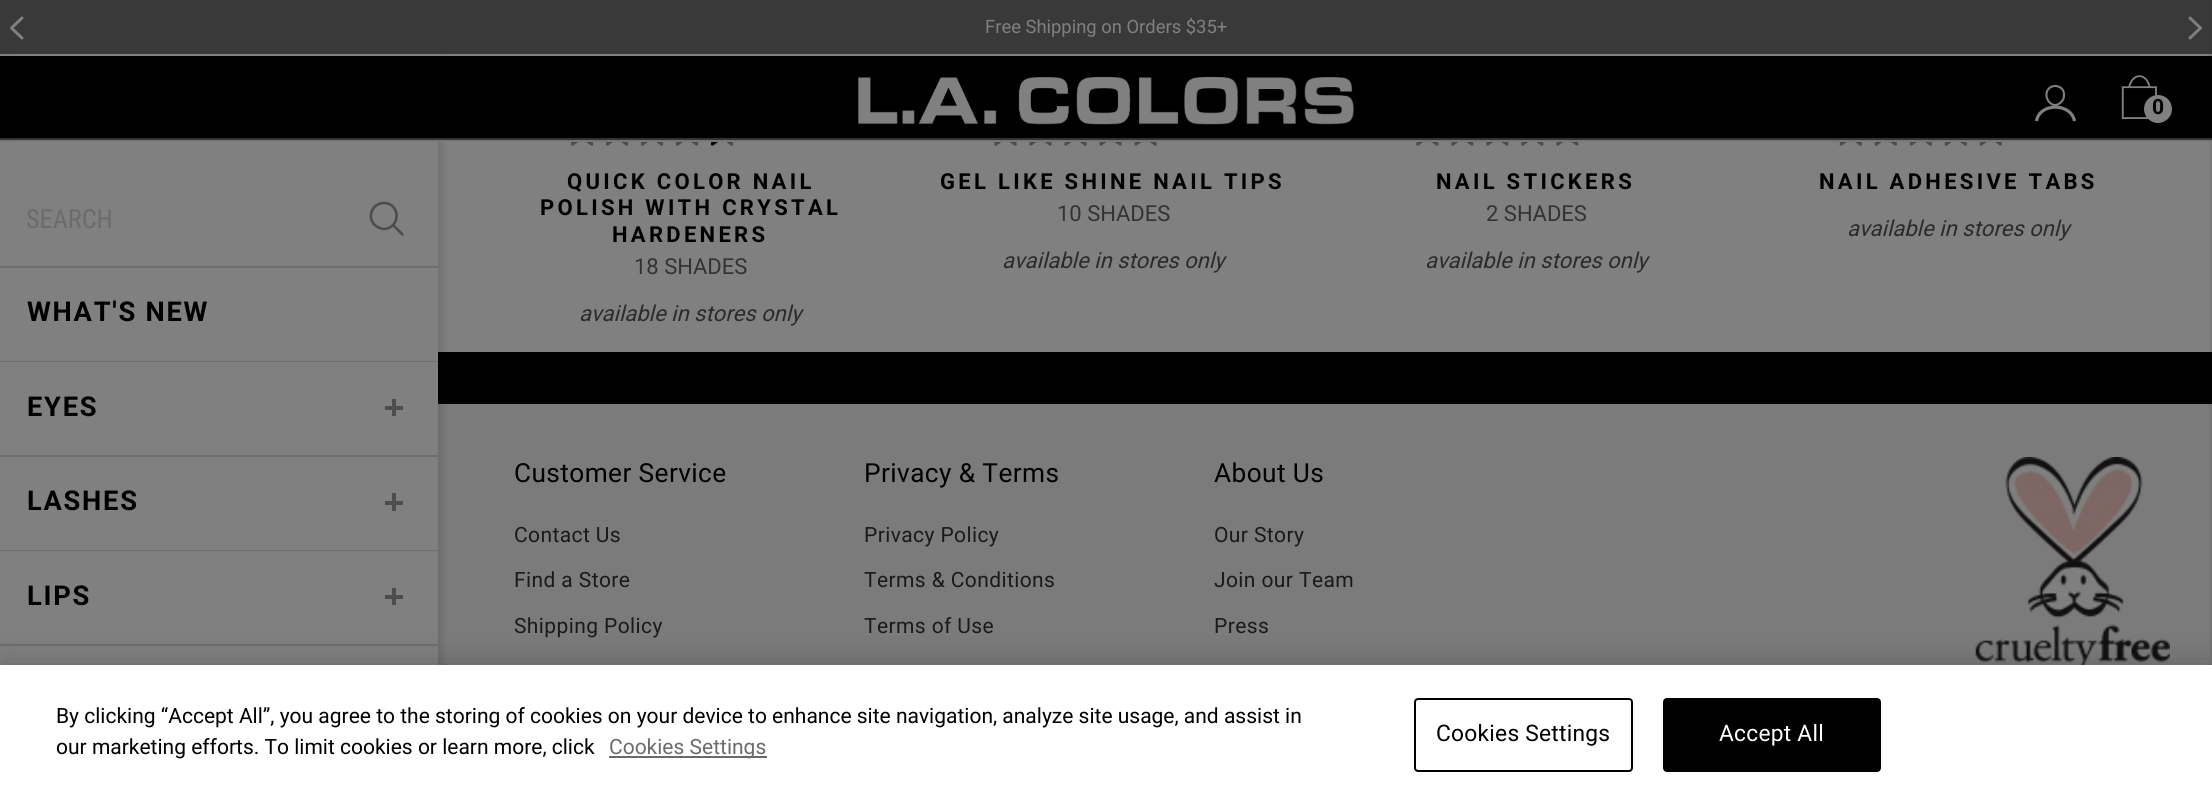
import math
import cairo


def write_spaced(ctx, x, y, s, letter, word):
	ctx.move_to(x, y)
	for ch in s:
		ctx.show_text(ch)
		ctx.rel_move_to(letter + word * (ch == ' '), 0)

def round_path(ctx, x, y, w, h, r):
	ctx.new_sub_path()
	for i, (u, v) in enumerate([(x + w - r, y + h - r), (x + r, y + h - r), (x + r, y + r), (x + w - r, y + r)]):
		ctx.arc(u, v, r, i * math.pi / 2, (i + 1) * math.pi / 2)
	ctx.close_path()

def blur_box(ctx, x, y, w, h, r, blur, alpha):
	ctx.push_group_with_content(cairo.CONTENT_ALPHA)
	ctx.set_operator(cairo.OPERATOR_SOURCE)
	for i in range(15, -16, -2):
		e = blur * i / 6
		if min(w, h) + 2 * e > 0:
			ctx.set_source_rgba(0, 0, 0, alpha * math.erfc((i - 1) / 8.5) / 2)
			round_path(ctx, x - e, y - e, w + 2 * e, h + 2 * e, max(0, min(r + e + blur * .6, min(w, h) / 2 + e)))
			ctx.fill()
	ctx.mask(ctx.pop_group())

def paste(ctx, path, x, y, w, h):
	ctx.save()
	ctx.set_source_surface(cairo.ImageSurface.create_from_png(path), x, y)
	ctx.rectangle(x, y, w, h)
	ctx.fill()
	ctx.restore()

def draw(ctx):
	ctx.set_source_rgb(0.502, 0.502, 0.502)
	ctx.paint()
	ctx.set_source_rgb(0.482, 0.482, 0.482)
	ctx.rectangle(438, 404, 1774, 261)
	ctx.fill()
	ctx.set_source_rgb(0, 0, 0)
	ctx.rectangle(438, 352, 1774, 52)
	ctx.fill()
	ctx.set_source_rgb(0, 0, 0)
	blur_box(ctx, 14, 5, 427, 791, 0, 4.5, 0.15)
	ctx.set_source_rgb(0.471, 0.471, 0.471)
	ctx.rectangle(0, 140, 2212, 2)
	ctx.fill()
	ctx.set_source_rgb(0.224, 0.224, 0.224)
	ctx.rectangle(0, 0, 2212, 54)
	ctx.fill()
	ctx.set_source_rgb(0.502, 0.502, 0.502)
	ctx.rectangle(9, 54, 437, 2)
	ctx.fill()
	ctx.new_path()
	ctx.move_to(22, 38)
	ctx.line_to(11.5, 28)
	ctx.line_to(22, 18)
	ctx.set_line_width(2.9)
	ctx.set_line_cap(cairo.LINE_CAP_ROUND)
	ctx.set_line_join(cairo.LINE_JOIN_ROUND)
	ctx.stroke()
	ctx.select_font_face('Roboto')
	ctx.set_font_size(18.4)
	ctx.move_to(985, 33)
	ctx.show_text('Free Shipping on Orders $35+')
	ctx.new_path()
	ctx.move_to(2190, 18)
	ctx.line_to(2200.5, 28)
	ctx.line_to(2190, 38)
	ctx.stroke()
	ctx.set_source_rgb(0, 0, 0)
	ctx.rectangle(0, 56, 2212, 82)
	ctx.fill()
	ctx.set_source_rgb(0.2, 0.2, 0.2)
	ctx.rectangle(0, 138, 2212, 2)
	ctx.fill()
	paste(ctx, 'media/1.png', 858, 76, 496, 49)
	ctx.new_path()
	ctx.move_to(2064, 95.5)
	ctx.curve_to(2064, 98, 2063, 100.5, 2061, 102)
	ctx.curve_to(2054.5, 109.5, 2045.5, 101.5, 2046.5, 93.5)
	ctx.curve_to(2048, 82.5, 2065, 84, 2064, 95.5)
	ctx.close_path()
	ctx.set_source_rgb(0.502, 0.502, 0.502)
	ctx.set_line_width(2.1)
	ctx.stroke()
	ctx.new_path()
	ctx.move_to(2036.5, 121)
	ctx.curve_to(2039.5, 102.5, 2071, 102.5, 2074.5, 121)
	ctx.set_line_width(3.2)
	ctx.set_line_cap(cairo.LINE_CAP_BUTT)
	ctx.set_line_join(cairo.LINE_JOIN_MITER)
	ctx.stroke()
	paste(ctx, 'media/2.png', 2121, 75, 36, 44)
	ctx.arc(2158, 109, 14, 0, 2 * math.pi)
	ctx.fill()
	ctx.select_font_face('Roboto', cairo.FONT_SLANT_NORMAL, cairo.FONT_WEIGHT_BOLD)
	ctx.set_font_size(21)
	ctx.set_source_rgb(0, 0, 0)
	ctx.move_to(2152, 114)
	ctx.show_text('0')
	ctx.set_source_rgb(0, 0, 0)
	blur_box(ctx, 2212, 2, 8, 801, 0, 2.5, 0.2)
	ctx.set_source_rgb(0.502, 0.502, 0.502)
	ctx.rectangle(9, 142, 429, 124)
	ctx.fill()
	ctx.set_source_rgb(0.431, 0.431, 0.431)
	ctx.rectangle(0, 266, 438, 2)
	ctx.fill()
	ctx.select_font_face('Roboto Condensed')
	ctx.set_font_size(26.25)
	ctx.set_source_rgb(0.42, 0.42, 0.42)
	ctx.move_to(26, 228)
	ctx.show_text('SEARCH')
	ctx.new_path()
	ctx.move_to(384, 203)
	ctx.curve_to(370.5, 203, 366, 220.5, 377.5, 227)
	ctx.curve_to(379.5, 228, 381.5, 229, 384, 229)
	ctx.curve_to(401, 228, 400.5, 203, 384, 203)
	ctx.close_path()
	ctx.set_source_rgb(0.302, 0.302, 0.302)
	ctx.set_line_width(2.6)
	ctx.stroke()
	ctx.new_path()
	ctx.move_to(393.5, 225.5)
	ctx.line_to(402.5, 234.5)
	ctx.set_line_cap(cairo.LINE_CAP_ROUND)
	ctx.stroke()
	ctx.set_source_rgb(0.502, 0.502, 0.502)
	ctx.rectangle(9, 268, 429, 93)
	ctx.fill()
	ctx.set_source_rgb(0.431, 0.431, 0.431)
	ctx.rectangle(0, 361, 438, 1)
	ctx.fill()
	ctx.select_font_face('Roboto', cairo.FONT_SLANT_NORMAL, cairo.FONT_WEIGHT_BOLD)
	ctx.set_font_size(27.25)
	ctx.set_source_rgb(0, 0, 0)
	write_spaced(ctx, 27, 321, 'WHAT\'S NEW', 1.75, 0)
	ctx.set_source_rgb(0.502, 0.502, 0.502)
	ctx.rectangle(9, 362, 429, 93)
	ctx.fill()
	ctx.set_source_rgb(0.431, 0.431, 0.431)
	ctx.rectangle(0, 455, 438, 2)
	ctx.fill()
	ctx.set_source_rgb(0, 0, 0)
	write_spaced(ctx, 27, 416, 'EYES', 1.75, 0)
	ctx.set_source_rgb(0.302, 0.302, 0.302)
	ctx.rectangle(392, 399, 4, 17)
	ctx.rectangle(385, 406, 18, 4)
	ctx.fill()
	ctx.set_source_rgb(0.502, 0.502, 0.502)
	ctx.rectangle(9, 457, 429, 93)
	ctx.fill()
	ctx.set_source_rgb(0.431, 0.431, 0.431)
	ctx.rectangle(0, 550, 438, 1)
	ctx.fill()
	ctx.set_source_rgb(0, 0, 0)
	write_spaced(ctx, 27, 510, 'LASHES', 1.75, 0)
	ctx.set_source_rgb(0.302, 0.302, 0.302)
	ctx.rectangle(392, 493, 4, 18)
	ctx.rectangle(385, 501, 18, 4)
	ctx.fill()
	ctx.set_source_rgb(0.502, 0.502, 0.502)
	ctx.rectangle(9, 551, 429, 93)
	ctx.fill()
	ctx.set_source_rgb(0.431, 0.431, 0.431)
	ctx.rectangle(0, 644, 438, 2)
	ctx.fill()
	ctx.set_source_rgb(0, 0, 0)
	write_spaced(ctx, 27, 605, 'LIPS', 1.75, 0)
	ctx.set_source_rgb(0.302, 0.302, 0.302)
	ctx.rectangle(392, 588, 4, 17)
	ctx.rectangle(385, 595, 18, 4)
	ctx.fill()
	ctx.set_source_rgb(0.502, 0.502, 0.502)
	ctx.rectangle(9, 646, 429, 19)
	ctx.fill()
	paste(ctx, 'media/3.png', 570, 142, 24, 4)
	paste(ctx, 'media/3.png', 605, 142, 24, 4)
	paste(ctx, 'media/3.png', 640, 142, 24, 4)
	paste(ctx, 'media/3.png', 675, 142, 24, 4)
	paste(ctx, 'media/4.png', 710, 142, 24, 4)
	ctx.set_font_size(22)
	ctx.set_source_rgb(0, 0, 0)
	for x, y, s in [
		(567, 189, 'QUICK COLOR NAIL'),
		(540, 215, 'POLISH WITH CRYSTAL'),
		(612, 242, 'HARDENERS'),
	]:
		write_spaced(ctx, x, y, s, 3.3, 0)
	ctx.select_font_face('Roboto')
	ctx.set_source_rgb(0.2, 0.2, 0.2)
	ctx.move_to(634, 274)
	ctx.show_text('18 SHADES')
	ctx.select_font_face('Roboto', cairo.FONT_SLANT_ITALIC)
	ctx.set_source_rgb(0.169, 0.169, 0.169)
	ctx.move_to(579, 321)
	ctx.show_text('available in stores only')
	paste(ctx, 'media/5.png', 994, 142, 23, 4)
	paste(ctx, 'media/5.png', 1029, 142, 23, 4)
	paste(ctx, 'media/5.png', 1064, 142, 23, 4)
	paste(ctx, 'media/5.png', 1099, 142, 23, 4)
	paste(ctx, 'media/5.png', 1134, 142, 23, 4)
	ctx.select_font_face('Roboto', cairo.FONT_SLANT_NORMAL, cairo.FONT_WEIGHT_BOLD)
	ctx.set_source_rgb(0, 0, 0)
	write_spaced(ctx, 940, 189, 'GEL LIKE SHINE NAIL TIPS', 3.3, 0)
	ctx.select_font_face('Roboto')
	ctx.set_source_rgb(0.2, 0.2, 0.2)
	ctx.move_to(1057, 221)
	ctx.show_text('10 SHADES')
	ctx.select_font_face('Roboto', cairo.FONT_SLANT_ITALIC)
	ctx.set_source_rgb(0.169, 0.169, 0.169)
	ctx.move_to(1002, 268)
	ctx.show_text('available in stores only')
	paste(ctx, 'media/6.png', 1416, 142, 23, 4)
	paste(ctx, 'media/6.png', 1451, 142, 23, 4)
	paste(ctx, 'media/6.png', 1486, 142, 23, 4)
	paste(ctx, 'media/6.png', 1521, 142, 23, 4)
	paste(ctx, 'media/6.png', 1556, 142, 23, 4)
	ctx.select_font_face('Roboto', cairo.FONT_SLANT_NORMAL, cairo.FONT_WEIGHT_BOLD)
	ctx.set_source_rgb(0, 0, 0)
	write_spaced(ctx, 1436, 189, 'NAIL STICKERS', 3.3, 0)
	ctx.select_font_face('Roboto')
	ctx.set_source_rgb(0.2, 0.2, 0.2)
	ctx.move_to(1486, 221)
	ctx.show_text('2 SHADES')
	ctx.select_font_face('Roboto', cairo.FONT_SLANT_ITALIC)
	ctx.set_source_rgb(0.169, 0.169, 0.169)
	ctx.move_to(1425, 268)
	ctx.show_text('available in stores only')
	paste(ctx, 'media/7.png', 1839, 142, 23, 4)
	paste(ctx, 'media/7.png', 1874, 142, 23, 4)
	paste(ctx, 'media/7.png', 1909, 142, 23, 4)
	paste(ctx, 'media/7.png', 1944, 142, 23, 4)
	paste(ctx, 'media/7.png', 1979, 142, 23, 4)
	ctx.select_font_face('Roboto', cairo.FONT_SLANT_NORMAL, cairo.FONT_WEIGHT_BOLD)
	ctx.set_source_rgb(0, 0, 0)
	write_spaced(ctx, 1819, 189, 'NAIL ADHESIVE TABS', 3.3, 0)
	ctx.select_font_face('Roboto', cairo.FONT_SLANT_ITALIC)
	ctx.set_source_rgb(0.169, 0.169, 0.169)
	ctx.move_to(1847, 236)
	ctx.show_text('available in stores only')
	ctx.select_font_face('Roboto')
	ctx.set_font_size(26.25)
	ctx.set_source_rgb(0, 0, 0)
	write_spaced(ctx, 514, 482, 'Customer Service', 0.4, 0)
	ctx.set_font_size(21)
	ctx.set_source_rgb(0.102, 0.102, 0.102)
	for x, y, s in [
		(514, 542, 'Contact Us'),
		(514, 587, 'Find a Store'),
		(514, 633, 'Shipping Policy'),
	]:
		write_spaced(ctx, x, y, s, 0.4, 0)
	ctx.set_font_size(26.25)
	ctx.set_source_rgb(0, 0, 0)
	write_spaced(ctx, 864, 482, 'Privacy & Terms', 0.4, 0)
	ctx.set_font_size(21)
	ctx.set_source_rgb(0.102, 0.102, 0.102)
	for x, y, s in [
		(864, 542, 'Privacy Policy'),
		(864, 587, 'Terms & Conditions'),
		(864, 633, 'Terms of Use'),
	]:
		write_spaced(ctx, x, y, s, 0.4, 0)
	ctx.set_font_size(26.25)
	ctx.set_source_rgb(0, 0, 0)
	write_spaced(ctx, 1214, 482, 'About Us', 0.4, 0)
	ctx.set_font_size(21)
	ctx.set_source_rgb(0.102, 0.102, 0.102)
	for x, y, s in [
		(1214, 542, 'Our Story'),
		(1214, 587, 'Join our Team'),
		(1214, 633, 'Press'),
	]:
		write_spaced(ctx, x, y, s, 0.4, 0)
	paste(ctx, 'media/8.png', 1975, 457, 195, 208)
	ctx.set_source_rgb(0, 0, 0)
	blur_box(ctx, 0, 665, 2212, 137, 0, 16, 0.2)
	ctx.set_source_rgb(1, 1, 1)
	ctx.rectangle(0, 665, 2212, 135)
	ctx.fill()
	ctx.set_source_rgb(0, 0, 0)
	ctx.move_to(56, 723)
	ctx.show_text('By clicking “Accept All”, you agree to the storing of cookies on your device to enhance site navigation, analyze site usage, and assist in')
	ctx.move_to(56, 754)
	ctx.show_text('our marketing efforts. To limit cookies or learn more, click')
	ctx.set_source_rgb(0.412, 0.412, 0.412)
	ctx.rectangle(609, 756, 158, 2)
	ctx.fill()
	ctx.set_source_rgb(0.42, 0.42, 0.42)
	ctx.move_to(609, 754)
	ctx.show_text('Cookies Settings')
	round_path(ctx, 1415, 699, 217, 72, 3)
	ctx.set_source_rgb(0, 0, 0)
	ctx.set_line_width(2)
	ctx.set_line_cap(cairo.LINE_CAP_BUTT)
	ctx.stroke()
	ctx.set_font_size(22.75)
	write_spaced(ctx, 1436, 741, 'Cookies Settings', 0.25, 0)
	round_path(ctx, 1664, 699, 216, 72, 3)
	ctx.fill_preserve()
	ctx.stroke()
	ctx.set_source_rgb(1, 1, 1)
	write_spaced(ctx, 1719, 741, 'Accept All', 0.25, 0)


surface = cairo.ImageSurface(cairo.FORMAT_RGB24, 2212, 800)
ctx = cairo.Context(surface)
options = cairo.FontOptions()
options.set_hint_metrics(cairo.HINT_METRICS_OFF)
options.set_hint_style(cairo.HINT_STYLE_NONE)
ctx.set_font_options(options)
ctx.set_miter_limit(4)
draw(ctx)
surface.write_to_png('image.png')
